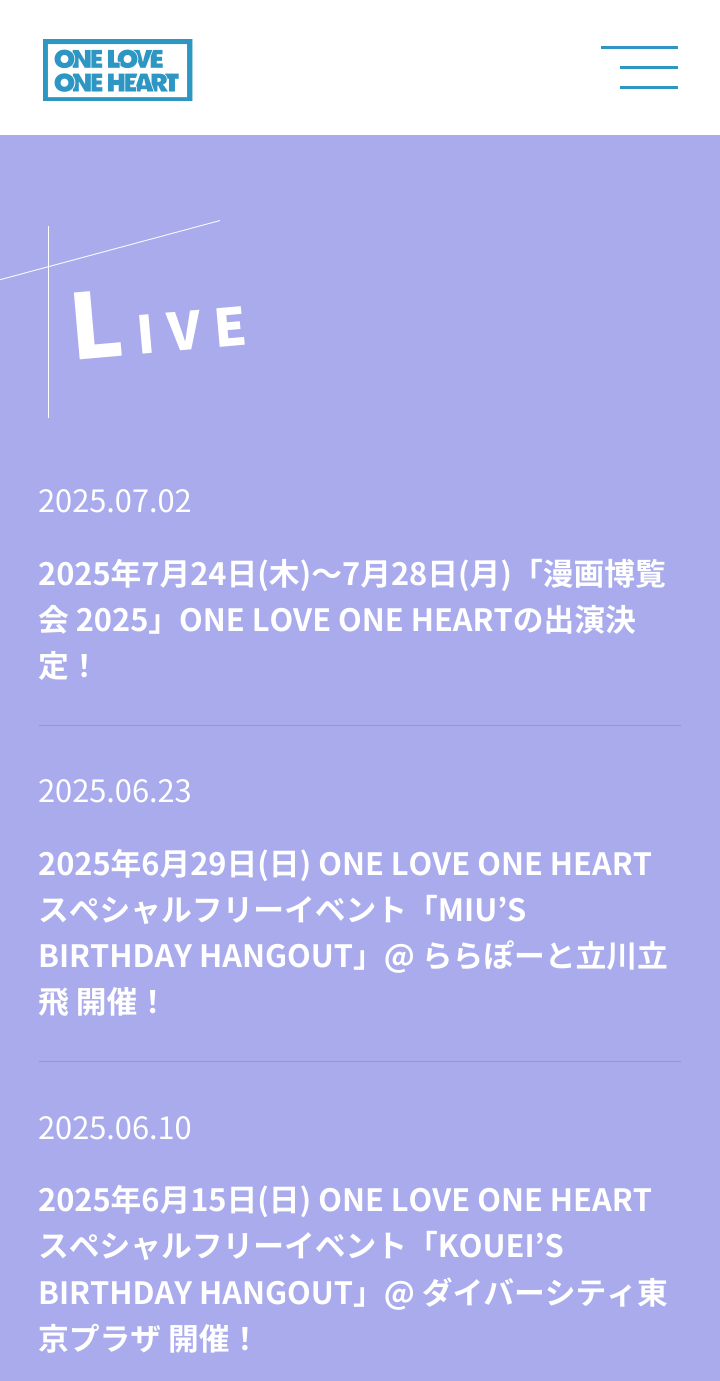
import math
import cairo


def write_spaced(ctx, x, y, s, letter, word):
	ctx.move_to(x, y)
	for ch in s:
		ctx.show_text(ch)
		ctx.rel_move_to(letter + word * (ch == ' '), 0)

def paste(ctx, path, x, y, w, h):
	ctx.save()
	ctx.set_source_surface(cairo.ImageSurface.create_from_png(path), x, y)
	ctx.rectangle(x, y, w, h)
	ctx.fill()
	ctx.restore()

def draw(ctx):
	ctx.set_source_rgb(1, 1, 1)
	ctx.paint()
	paste(ctx, 'media/1.png', 43, 39, 150, 62)
	ctx.set_source_rgb(0.176, 0.588, 0.765)
	ctx.rectangle(601, 46, 77, 3)
	ctx.rectangle(620, 66, 58, 3)
	ctx.rectangle(620, 86, 58, 3)
	ctx.fill()
	ctx.set_source_rgb(0.663, 0.671, 0.925)
	ctx.rectangle(0, 135, 720, 1246)
	ctx.fill()
	ctx.set_source_rgb(1, 1, 1)
	ctx.rectangle(48, 226, 1, 192)
	ctx.fill()
	ctx.new_path()
	ctx.move_to(220, 220)
	ctx.line_to(220, 221)
	ctx.line_to(-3, 281)
	ctx.line_to(-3, 280)
	ctx.close_path()
	ctx.fill()
	ctx.select_font_face('Noto Sans JP Black')
	ctx.set_font_size(90)
	ctx.save()
	ctx.translate(72, 360)
	ctx.rotate(-5 * math.pi / 180)
	write_spaced(ctx, 0, 0, 'L', 13, 0)
	ctx.restore()
	ctx.set_font_size(52)
	ctx.save()
	ctx.translate(138, 354)
	ctx.rotate(-5 * math.pi / 180)
	write_spaced(ctx, 0, 0, 'IVE', 13, 0)
	ctx.restore()
	ctx.set_source_rgb(0.58, 0.588, 0.851)
	ctx.rectangle(39, 725, 642, 1)
	ctx.fill()
	ctx.select_font_face('Noto Sans JP')
	ctx.set_font_size(30.75)
	ctx.set_source_rgb(1, 1, 1)
	ctx.move_to(38, 512)
	ctx.show_text('2025.07.02')
	ctx.select_font_face('Noto Sans JP', cairo.FONT_SLANT_NORMAL, cairo.FONT_WEIGHT_BOLD)
	for x, y, s in [
		(38, 585, '2025年7月24日(木)〜7月28日(月)「漫画博覧'),
		(38, 631, '会 2025」ONE LOVE ONE HEARTの出演決'),
		(38, 677, '定！'),
	]:
		ctx.move_to(x, y)
		ctx.show_text(s)
	ctx.set_source_rgb(0.58, 0.588, 0.851)
	ctx.rectangle(39, 1061, 642, 1)
	ctx.fill()
	ctx.select_font_face('Noto Sans JP')
	ctx.set_source_rgb(1, 1, 1)
	ctx.move_to(38, 802)
	ctx.show_text('2025.06.23')
	ctx.select_font_face('Noto Sans JP', cairo.FONT_SLANT_NORMAL, cairo.FONT_WEIGHT_BOLD)
	for x, y, s in [
		(38, 875, '2025年6月29日(日) ONE LOVE ONE HEART'),
		(38, 921, 'スペシャルフリーイベント「MIU’S'),
		(38, 967, 'BIRTHDAY HANGOUT」@ ららぽーと立川立'),
		(38, 1013, '飛 開催！'),
	]:
		ctx.move_to(x, y)
		ctx.show_text(s)
	ctx.select_font_face('Noto Sans JP')
	ctx.move_to(38, 1139)
	ctx.show_text('2025.06.10')
	ctx.select_font_face('Noto Sans JP', cairo.FONT_SLANT_NORMAL, cairo.FONT_WEIGHT_BOLD)
	for x, y, s in [
		(38, 1211, '2025年6月15日(日) ONE LOVE ONE HEART'),
		(38, 1257, 'スペシャルフリーイベント「KOUEI’S'),
		(38, 1304, 'BIRTHDAY HANGOUT」@ ダイバーシティ東'),
		(38, 1350, '京プラザ 開催！'),
	]:
		ctx.move_to(x, y)
		ctx.show_text(s)


surface = cairo.ImageSurface(cairo.FORMAT_RGB24, 720, 1381)
ctx = cairo.Context(surface)
options = cairo.FontOptions()
options.set_hint_metrics(cairo.HINT_METRICS_OFF)
options.set_hint_style(cairo.HINT_STYLE_NONE)
ctx.set_font_options(options)
ctx.set_miter_limit(4)
draw(ctx)
surface.write_to_png('image.png')
